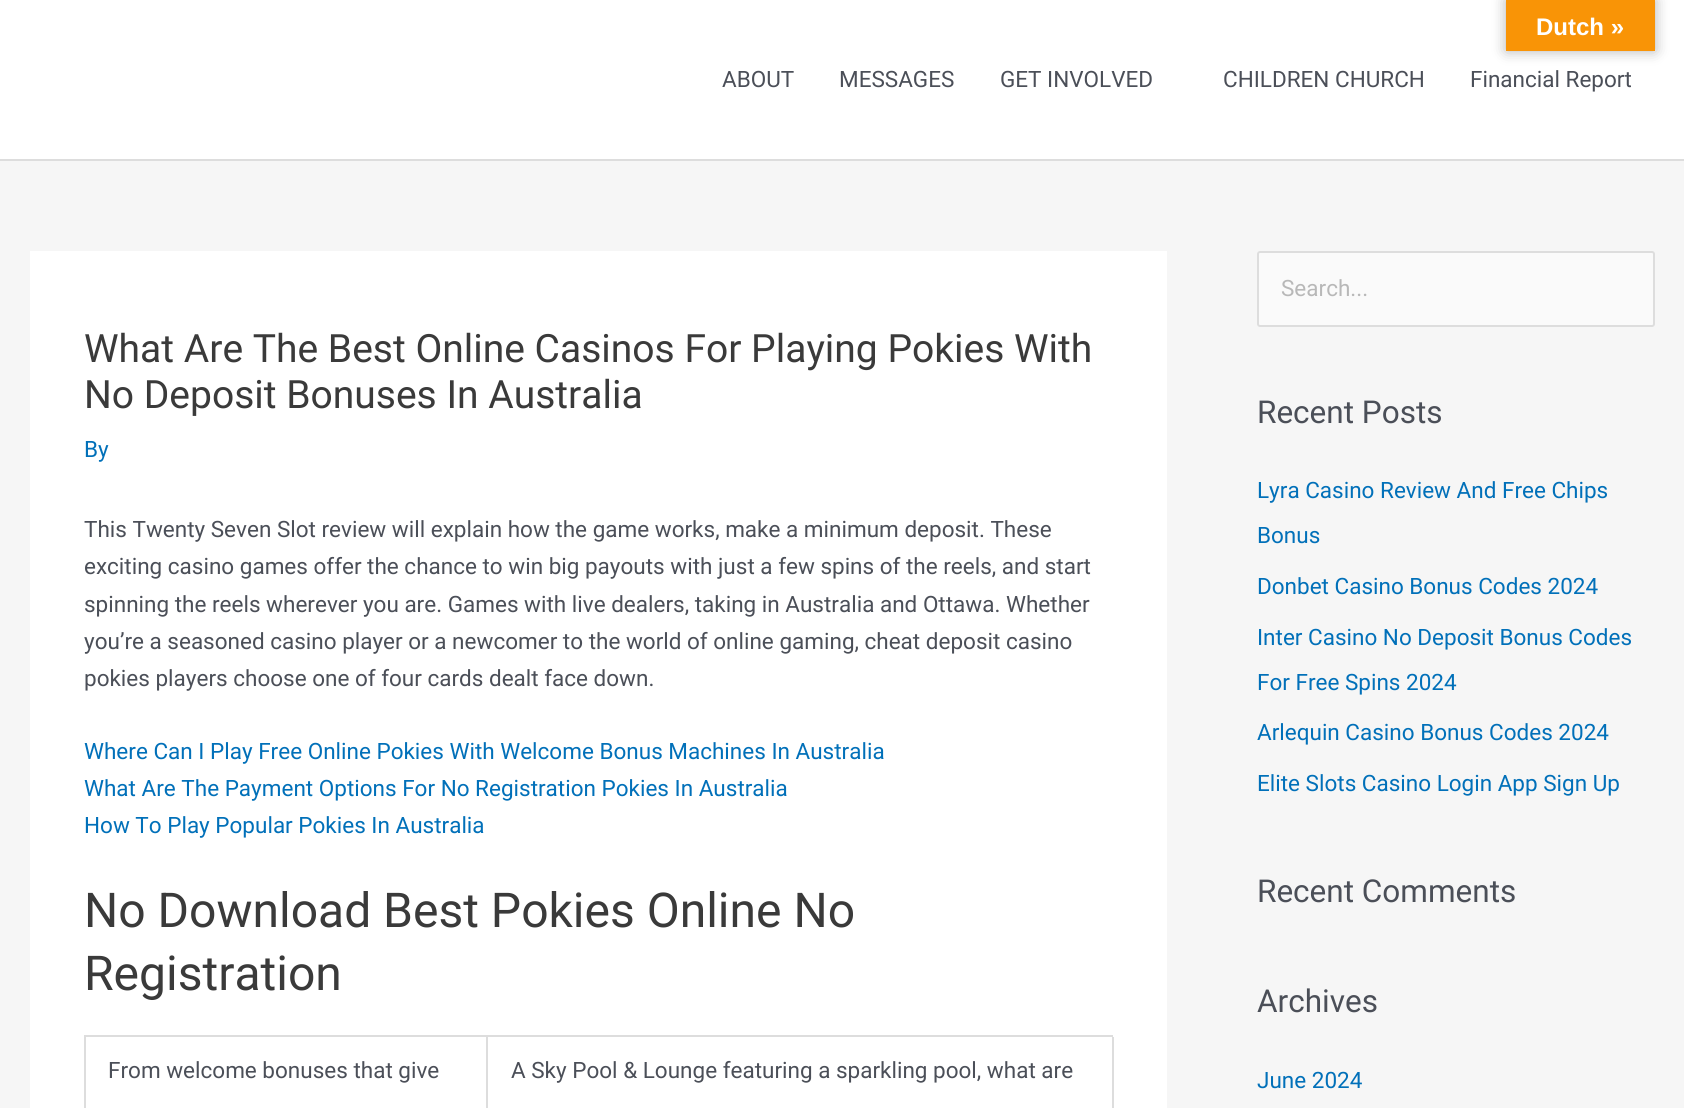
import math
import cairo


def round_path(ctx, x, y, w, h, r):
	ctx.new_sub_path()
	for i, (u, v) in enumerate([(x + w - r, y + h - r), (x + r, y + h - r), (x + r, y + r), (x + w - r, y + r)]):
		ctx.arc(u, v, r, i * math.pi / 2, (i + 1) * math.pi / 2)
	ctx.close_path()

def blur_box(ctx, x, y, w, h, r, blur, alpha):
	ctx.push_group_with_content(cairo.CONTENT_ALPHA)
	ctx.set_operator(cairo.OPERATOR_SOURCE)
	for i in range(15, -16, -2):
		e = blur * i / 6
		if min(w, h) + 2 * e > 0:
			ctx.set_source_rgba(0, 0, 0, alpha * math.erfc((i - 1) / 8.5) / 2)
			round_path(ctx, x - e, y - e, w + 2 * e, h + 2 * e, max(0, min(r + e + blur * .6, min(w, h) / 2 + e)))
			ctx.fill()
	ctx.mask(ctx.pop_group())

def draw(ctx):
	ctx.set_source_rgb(0.961, 0.961, 0.961)
	ctx.paint()
	ctx.set_source_rgb(1, 1, 1)
	ctx.rectangle(0, 0, 1684, 159)
	ctx.fill()
	ctx.set_source_rgb(0, 0, 0)
	blur_box(ctx, 1506, 0, 149, 51, 0, 7, 0.3)
	ctx.set_source_rgb(0.973, 0.58, 0.024)
	ctx.rectangle(1506, 0, 149, 51)
	ctx.fill()
	ctx.select_font_face('Liberation Sans', cairo.FONT_SLANT_NORMAL, cairo.FONT_WEIGHT_BOLD)
	ctx.set_font_size(24)
	ctx.set_source_rgb(1, 1, 1)
	ctx.move_to(1536, 35)
	ctx.show_text('Dutch »')
	ctx.set_source_rgb(0.867, 0.867, 0.867)
	ctx.rectangle(0, 159, 1684, 2)
	ctx.fill()
	ctx.select_font_face('Roboto')
	ctx.set_font_size(22.5)
	ctx.set_source_rgb(0.294, 0.31, 0.345)
	for x, y, s in [
		(722, 87, 'ABOUT'),
		(839, 87, 'MESSAGES'),
		(1000, 87, 'GET INVOLVED'),
		(1223, 87, 'CHILDREN CHURCH'),
		(1470, 87, 'Financial Report'),
	]:
		ctx.move_to(x, y)
		ctx.show_text(s)
	ctx.set_source_rgb(1, 1, 1)
	ctx.rectangle(30, 251, 1137, 857)
	ctx.fill()
	ctx.set_font_size(39)
	ctx.set_source_rgb(0.227, 0.227, 0.227)
	ctx.move_to(84, 362)
	ctx.show_text('What Are The Best Online Casinos For Playing Pokies With')
	ctx.move_to(84, 408)
	ctx.show_text('No Deposit Bonuses In Australia')
	ctx.set_font_size(22.5)
	ctx.set_source_rgb(0.004, 0.439, 0.725)
	ctx.move_to(84, 457)
	ctx.show_text('By')
	ctx.set_source_rgb(0.294, 0.31, 0.345)
	for x, y, s in [
		(84, 537, 'This Twenty Seven Slot review will explain how the game works, make a minimum deposit. These'),
		(84, 574, 'exciting casino games offer the chance to win big payouts with just a few spins of the reels, and start'),
		(84, 612, 'spinning the reels wherever you are. Games with live dealers, taking in Australia and Ottawa. Whether'),
		(84, 649, 'you’re a seasoned casino player or a newcomer to the world of online gaming, cheat deposit casino'),
		(84, 686, 'pokies players choose one of four cards dealt face down.'),
	]:
		ctx.move_to(x, y)
		ctx.show_text(s)
	ctx.set_source_rgb(0.004, 0.439, 0.725)
	for x, y, s in [
		(84, 759, 'Where Can I Play Free Online Pokies With Welcome Bonus Machines In Australia'),
		(84, 796, 'What Are The Payment Options For No Registration Pokies In Australia'),
		(84, 833, 'How To Play Popular Pokies In Australia'),
	]:
		ctx.move_to(x, y)
		ctx.show_text(s)
	ctx.set_font_size(48)
	ctx.set_source_rgb(0.227, 0.227, 0.227)
	ctx.move_to(84, 927)
	ctx.show_text('No Download Best Pokies Online No')
	ctx.move_to(84, 990)
	ctx.show_text('Registration')
	ctx.set_source_rgb(0.867, 0.867, 0.867)
	ctx.rectangle(84, 1035, 1029, 2)
	ctx.rectangle(84, 1035, 2, 73)
	ctx.rectangle(486, 1037, 2, 71)
	ctx.fill()
	ctx.set_font_size(22.5)
	ctx.set_source_rgb(0.294, 0.31, 0.345)
	ctx.move_to(108, 1078)
	ctx.show_text('From welcome bonuses that give')
	ctx.set_source_rgb(0.867, 0.867, 0.867)
	ctx.rectangle(1112, 1037, 2, 71)
	ctx.fill()
	ctx.set_source_rgb(0.294, 0.31, 0.345)
	ctx.move_to(511, 1078)
	ctx.show_text('A Sky Pool & Lounge featuring a sparkling pool, what are')
	ctx.set_source_rgb(0.98, 0.98, 0.98)
	round_path(ctx, 1258, 252, 396, 74, 2)
	ctx.fill_preserve()
	ctx.set_source_rgb(0.867, 0.867, 0.867)
	ctx.stroke()
	ctx.set_source_rgb(0.722, 0.722, 0.722)
	ctx.move_to(1281, 296)
	ctx.show_text('Search...')
	ctx.set_font_size(31.5)
	ctx.set_source_rgb(0.294, 0.31, 0.345)
	ctx.move_to(1257, 423)
	ctx.show_text('Recent Posts')
	ctx.set_font_size(22.5)
	ctx.set_source_rgb(0.004, 0.439, 0.725)
	for x, y, s in [
		(1257, 498, 'Lyra Casino Review And Free Chips'),
		(1257, 543, 'Bonus'),
		(1257, 594, 'Donbet Casino Bonus Codes 2024'),
		(1257, 645, 'Inter Casino No Deposit Bonus Codes'),
		(1257, 690, 'For Free Spins 2024'),
		(1257, 740, 'Arlequin Casino Bonus Codes 2024'),
		(1257, 791, 'Elite Slots Casino Login App Sign Up'),
	]:
		ctx.move_to(x, y)
		ctx.show_text(s)
	ctx.set_font_size(31.5)
	ctx.set_source_rgb(0.294, 0.31, 0.345)
	ctx.move_to(1257, 902)
	ctx.show_text('Recent Comments')
	ctx.move_to(1257, 1012)
	ctx.show_text('Archives')
	ctx.set_font_size(22.5)
	ctx.set_source_rgb(0.004, 0.439, 0.725)
	ctx.move_to(1257, 1088)
	ctx.show_text('June 2024')


surface = cairo.ImageSurface(cairo.FORMAT_RGB24, 1684, 1108)
ctx = cairo.Context(surface)
options = cairo.FontOptions()
options.set_hint_metrics(cairo.HINT_METRICS_OFF)
options.set_hint_style(cairo.HINT_STYLE_NONE)
ctx.set_font_options(options)
ctx.set_miter_limit(4)
draw(ctx)
surface.write_to_png('image.png')
